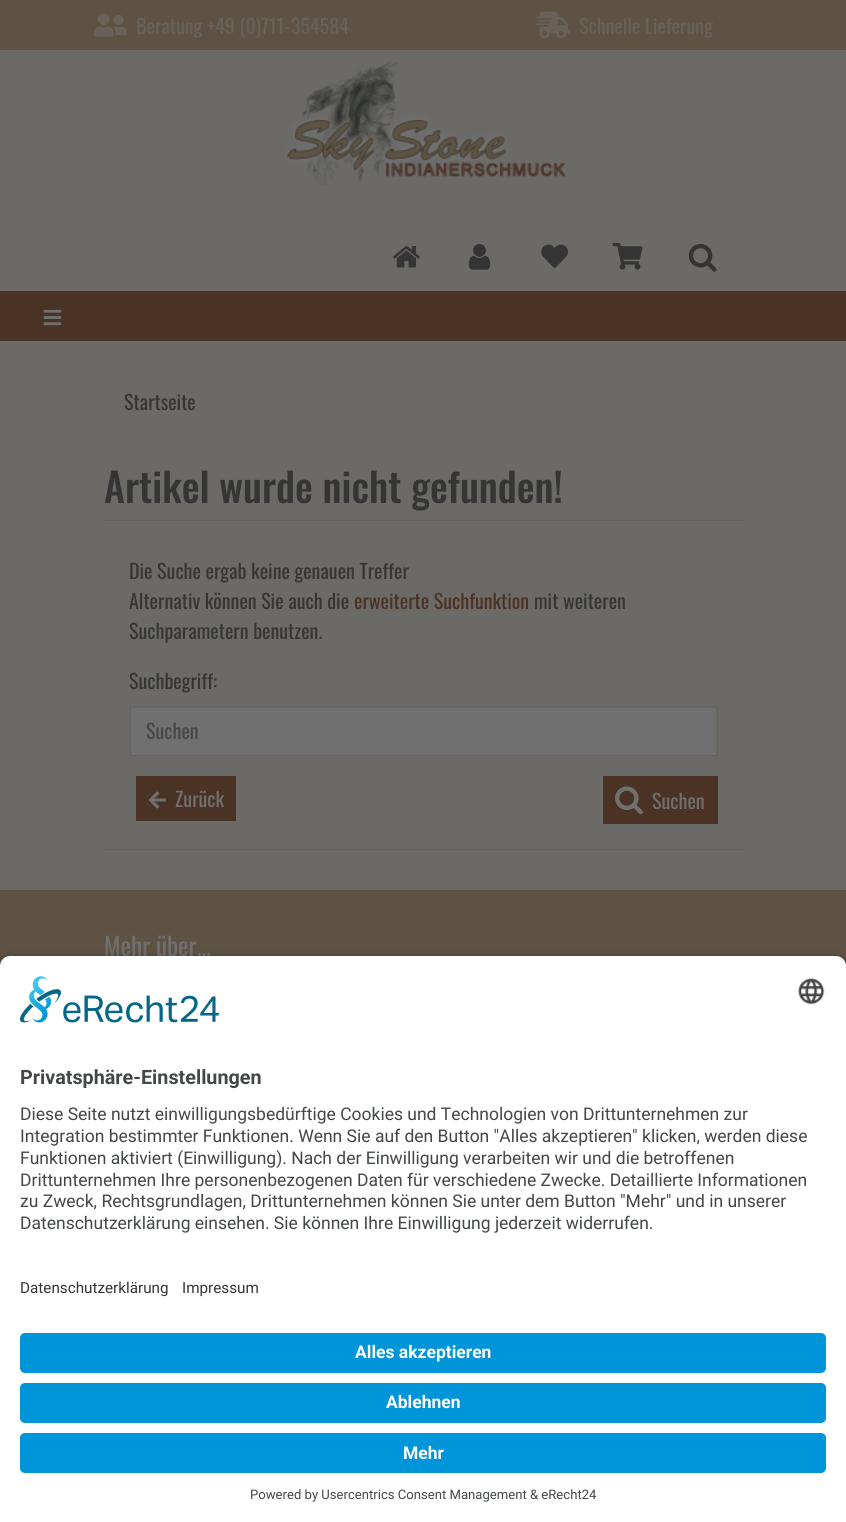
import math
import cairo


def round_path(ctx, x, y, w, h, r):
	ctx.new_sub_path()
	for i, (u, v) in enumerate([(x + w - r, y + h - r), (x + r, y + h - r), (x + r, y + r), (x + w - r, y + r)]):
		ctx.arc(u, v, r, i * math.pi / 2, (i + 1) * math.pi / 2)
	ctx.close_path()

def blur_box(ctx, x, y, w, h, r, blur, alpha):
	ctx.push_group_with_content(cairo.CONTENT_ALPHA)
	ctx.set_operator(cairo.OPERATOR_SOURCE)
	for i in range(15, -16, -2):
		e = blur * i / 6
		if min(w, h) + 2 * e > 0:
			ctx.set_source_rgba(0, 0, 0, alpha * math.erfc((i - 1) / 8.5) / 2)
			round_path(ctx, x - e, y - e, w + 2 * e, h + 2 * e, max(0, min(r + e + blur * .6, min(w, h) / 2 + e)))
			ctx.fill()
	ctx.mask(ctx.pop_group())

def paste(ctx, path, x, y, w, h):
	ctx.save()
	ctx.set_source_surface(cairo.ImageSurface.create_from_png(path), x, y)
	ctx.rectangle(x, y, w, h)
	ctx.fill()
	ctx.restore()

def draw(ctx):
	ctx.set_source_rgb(0.42, 0.416, 0.404)
	ctx.paint()
	ctx.set_source_rgb(0.369, 0.325, 0.263)
	ctx.rectangle(0, 0, 846, 50)
	ctx.fill()
	paste(ctx, 'media/1.png', 93, 13, 34, 24)
	ctx.select_font_face('Oswald')
	ctx.set_font_size(20)
	ctx.set_source_rgb(0.404, 0.384, 0.353)
	ctx.move_to(136, 34)
	ctx.show_text('Beratung +49 (0)711-354584')
	paste(ctx, 'media/2.png', 536, 11, 34, 28)
	ctx.move_to(579, 34)
	ctx.show_text('Schnelle Lieferung')
	paste(ctx, 'media/3.png', 284, 61, 282, 124)
	paste(ctx, 'media/4.png', 393, 246, 27, 22)
	paste(ctx, 'media/5.png', 468, 243, 23, 27)
	paste(ctx, 'media/6.png', 541, 244, 27, 24)
	paste(ctx, 'media/7.png', 612, 242, 31, 28)
	paste(ctx, 'media/8.png', 688, 243, 29, 29)
	ctx.set_source_rgb(0.29, 0.196, 0.145)
	ctx.rectangle(0, 291, 846, 50)
	ctx.fill()
	paste(ctx, 'media/9.png', 43, 309, 19, 17)
	ctx.set_source_rgb(0.208, 0.208, 0.208)
	ctx.move_to(124, 410)
	ctx.show_text('Startseite')
	ctx.set_source_rgb(0.38, 0.38, 0.38)
	ctx.rectangle(105, 520, 638, 1)
	ctx.fill()
	ctx.select_font_face('Oswald Medium')
	ctx.set_font_size(40)
	ctx.set_source_rgb(0.208, 0.208, 0.208)
	ctx.move_to(104, 503)
	ctx.show_text('Artikel wurde nicht gefunden!')
	ctx.set_source_rgb(0.38, 0.38, 0.38)
	ctx.rectangle(105, 849, 638, 1)
	ctx.fill()
	ctx.select_font_face('Oswald')
	ctx.set_font_size(20)
	ctx.set_source_rgb(0.208, 0.208, 0.208)
	ctx.move_to(129, 579)
	ctx.show_text('Die Suche ergab keine genauen Treffer')
	ctx.move_to(129, 609)
	ctx.show_text('Alternativ können Sie auch die')
	ctx.set_source_rgb(0.29, 0.196, 0.145)
	ctx.move_to(354, 609)
	ctx.show_text('erweiterte Suchfunktion')
	ctx.set_source_rgb(0.208, 0.208, 0.208)
	for x, y, s in [
		(534, 609, 'mit weiteren'),
		(129, 639, 'Suchparametern benutzen.'),
		(129, 689, 'Suchbegriff:'),
	]:
		ctx.move_to(x, y)
		ctx.show_text(s)
	ctx.set_source_rgb(0.439, 0.439, 0.439)
	ctx.rectangle(131, 708, 585, 47)
	ctx.fill()
	ctx.rectangle(130.5, 706.5, 587, 49)
	ctx.set_source_rgb(0.384, 0.388, 0.396)
	ctx.set_line_width(1)
	ctx.stroke()
	ctx.set_source_rgb(0.267, 0.278, 0.286)
	ctx.move_to(146, 739)
	ctx.show_text('Suchen')
	ctx.set_source_rgb(0.29, 0.196, 0.145)
	ctx.rectangle(136, 776, 100, 45)
	ctx.fill()
	paste(ctx, 'media/10.png', 148, 791, 19, 18)
	ctx.set_source_rgb(0.439, 0.439, 0.439)
	ctx.move_to(175, 807)
	ctx.show_text('Zurück')
	ctx.set_source_rgb(0.29, 0.196, 0.145)
	ctx.rectangle(603, 776, 115, 48)
	ctx.fill()
	paste(ctx, 'media/11.png', 615, 786, 28, 29)
	ctx.set_source_rgb(0.439, 0.439, 0.439)
	ctx.move_to(652, 809)
	ctx.show_text('Suchen')
	ctx.set_source_rgb(0.369, 0.325, 0.263)
	ctx.rectangle(0, 890, 846, 76)
	ctx.fill()
	ctx.set_font_size(25)
	ctx.set_source_rgb(0.439, 0.439, 0.439)
	ctx.move_to(104, 956)
	ctx.show_text('Mehr über...')
	ctx.set_source_rgb(0, 0, 0)
	blur_box(ctx, 0, 960, 846, 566, 10, 4.5, 0.8)
	ctx.set_source_rgb(1, 1, 1)
	ctx.new_path()
	ctx.move_to(10, 956)
	ctx.line_to(836, 956)
	ctx.curve_to(841.5, 956, 846, 960.5, 846, 966)
	ctx.line_to(846, 1260)
	ctx.line_to(0, 1260)
	ctx.line_to(0, 966)
	ctx.curve_to(0, 960.5, 4.5, 956, 10, 956)
	ctx.close_path()
	ctx.fill()
	paste(ctx, 'media/12.png', 20, 976, 199, 47)
	paste(ctx, 'media/13.png', 798, 978, 27, 27)
	ctx.select_font_face('Roboto', cairo.FONT_SLANT_NORMAL, cairo.FONT_WEIGHT_BOLD)
	ctx.set_font_size(19.75)
	ctx.set_source_rgb(0.267, 0.278, 0.286)
	ctx.move_to(20, 1084)
	ctx.show_text('Privatsphäre-Einstellungen')
	ctx.select_font_face('Roboto')
	ctx.set_font_size(17.5)
	for x, y, s in [
		(20, 1120, 'Diese Seite nutzt einwilligungsbedürftige Cookies und Technologien von Drittunternehmen zur'),
		(20, 1142, 'Integration bestimmter Funktionen. Wenn Sie auf den Button "Alles akzeptieren" klicken, werden diese'),
		(20, 1164, 'Funktionen aktiviert (Einwilligung). Nach der Einwilligung verarbeiten wir und die betroffenen'),
		(20, 1186, 'Drittunternehmen Ihre personenbezogenen Daten für verschiedene Zwecke. Detaillierte Informationen'),
		(20, 1207, 'zu Zweck, Rechtsgrundlagen, Drittunternehmen können Sie unter dem Button "Mehr" und in unserer'),
		(20, 1229, 'Datenschutzerklärung einsehen. Sie können Ihre Einwilligung jederzeit widerrufen.'),
	]:
		ctx.move_to(x, y)
		ctx.show_text(s)
	ctx.set_source_rgb(1, 1, 1)
	ctx.rectangle(0, 1260, 846, 262)
	ctx.fill()
	ctx.set_font_size(15.25)
	ctx.set_source_rgb(0.208, 0.208, 0.208)
	ctx.move_to(20, 1293)
	ctx.show_text('Datenschutzerklärung')
	ctx.move_to(182, 1293)
	ctx.show_text('Impressum')
	ctx.set_source_rgb(0, 0.58, 0.847)
	round_path(ctx, 20, 1333, 806, 40, 5)
	ctx.fill()
	ctx.select_font_face('Roboto', cairo.FONT_SLANT_NORMAL, cairo.FONT_WEIGHT_BOLD)
	ctx.set_font_size(17.5)
	ctx.set_source_rgb(1, 1, 1)
	ctx.move_to(355, 1358)
	ctx.show_text('Alles akzeptieren')
	ctx.set_source_rgb(0, 0.58, 0.847)
	round_path(ctx, 20, 1383, 806, 40, 5)
	ctx.fill()
	ctx.set_source_rgb(1, 1, 1)
	ctx.move_to(386, 1408)
	ctx.show_text('Ablehnen')
	ctx.set_source_rgb(0, 0.58, 0.847)
	round_path(ctx, 20, 1433, 806, 40, 5)
	ctx.fill()
	ctx.set_source_rgb(1, 1, 1)
	ctx.move_to(403, 1459)
	ctx.show_text('Mehr')
	ctx.select_font_face('Roboto')
	ctx.set_font_size(13.1)
	ctx.set_source_rgb(0.267, 0.278, 0.286)
	ctx.move_to(250, 1499)
	ctx.show_text('Powered by Usercentrics Consent Management & eRecht24')


surface = cairo.ImageSurface(cairo.FORMAT_RGB24, 846, 1522)
ctx = cairo.Context(surface)
options = cairo.FontOptions()
options.set_hint_metrics(cairo.HINT_METRICS_OFF)
options.set_hint_style(cairo.HINT_STYLE_NONE)
ctx.set_font_options(options)
ctx.set_miter_limit(4)
draw(ctx)
surface.write_to_png('image.png')
